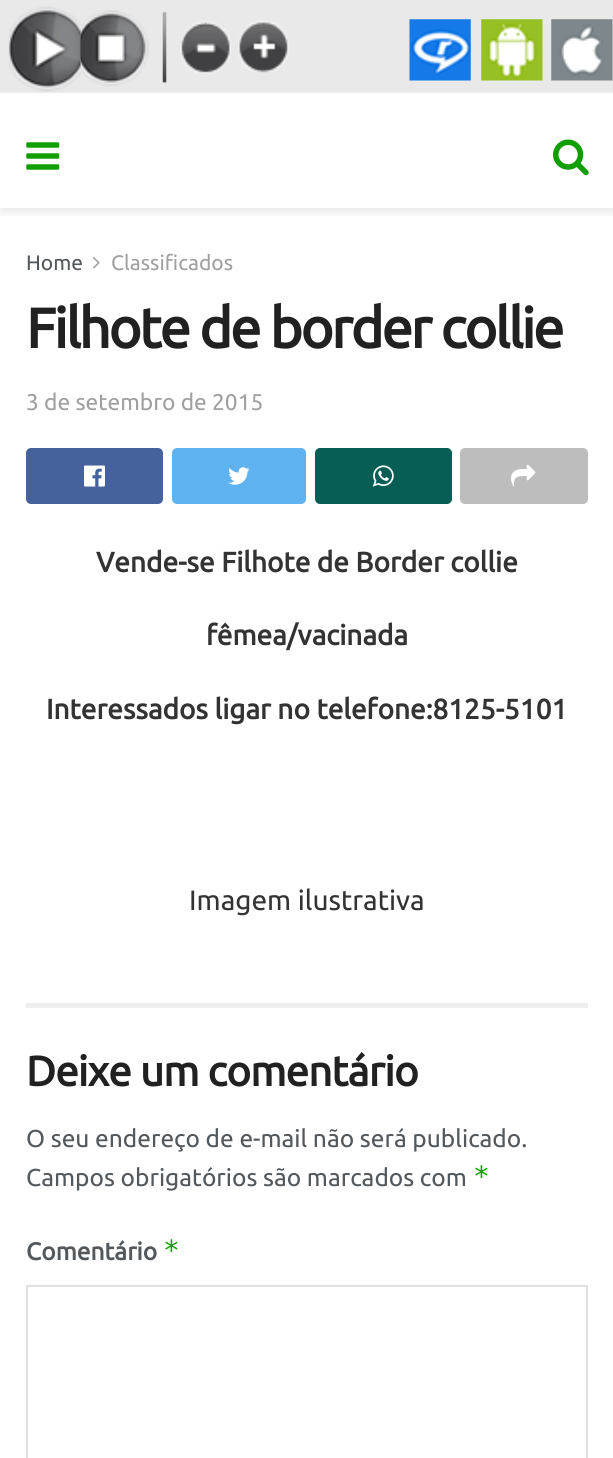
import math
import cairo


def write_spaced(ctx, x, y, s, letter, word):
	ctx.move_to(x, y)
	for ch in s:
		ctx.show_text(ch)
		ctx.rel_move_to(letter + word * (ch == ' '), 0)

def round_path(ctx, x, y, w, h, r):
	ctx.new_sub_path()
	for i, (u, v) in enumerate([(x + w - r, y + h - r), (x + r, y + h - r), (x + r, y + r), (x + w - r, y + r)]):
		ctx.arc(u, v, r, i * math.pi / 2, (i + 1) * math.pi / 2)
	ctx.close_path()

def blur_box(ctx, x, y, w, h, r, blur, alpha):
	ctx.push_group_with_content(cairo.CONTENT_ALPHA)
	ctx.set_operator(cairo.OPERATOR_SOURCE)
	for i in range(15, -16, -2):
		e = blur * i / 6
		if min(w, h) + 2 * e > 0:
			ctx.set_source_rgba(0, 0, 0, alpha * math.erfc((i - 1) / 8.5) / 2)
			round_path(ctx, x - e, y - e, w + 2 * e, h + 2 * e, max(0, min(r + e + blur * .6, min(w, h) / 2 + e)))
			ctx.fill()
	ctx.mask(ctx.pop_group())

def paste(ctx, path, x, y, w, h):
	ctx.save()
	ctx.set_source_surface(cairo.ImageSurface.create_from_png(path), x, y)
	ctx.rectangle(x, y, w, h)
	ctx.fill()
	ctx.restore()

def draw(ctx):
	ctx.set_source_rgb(1, 1, 1)
	ctx.paint()
	paste(ctx, 'media/1.png', 0, 0, 613, 93)
	ctx.save()
	ctx.rectangle(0, 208, 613, 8)
	ctx.clip()
	ctx.set_source_rgb(0, 0, 0)
	blur_box(ctx, 0, 107, 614, 105, 0, 5, 0.1)
	ctx.restore()
	paste(ctx, 'media/2.png', 26, 142, 34, 28)
	paste(ctx, 'media/3.png', 553, 139, 36, 37)
	ctx.select_font_face('Ubuntu')
	ctx.set_font_size(21)
	ctx.set_source_rgb(0.325, 0.345, 0.361)
	ctx.move_to(26, 270)
	ctx.show_text('Home')
	paste(ctx, 'media/4.png', 93, 257, 7, 12)
	ctx.set_source_rgb(0.627, 0.627, 0.627)
	ctx.move_to(111, 270)
	ctx.show_text('Classificados')
	ctx.select_font_face('Ubuntu', cairo.FONT_SLANT_NORMAL, cairo.FONT_WEIGHT_BOLD)
	ctx.set_font_size(56)
	ctx.set_source_rgb(0.129, 0.129, 0.129)
	write_spaced(ctx, 26, 348, 'Filhote de border collie', -2.25, 0)
	ctx.select_font_face('Ubuntu')
	ctx.set_font_size(22.75)
	ctx.set_source_rgb(0.627, 0.627, 0.627)
	ctx.move_to(26, 410)
	ctx.show_text('3 de setembro de 2015')
	ctx.set_source_rgb(0.271, 0.384, 0.624)
	round_path(ctx, 26, 448, 137, 56, 5)
	ctx.fill()
	paste(ctx, 'media/5.png', 84, 465, 21, 22)
	ctx.set_source_rgb(0.369, 0.698, 0.937)
	round_path(ctx, 172, 448, 134, 56, 5)
	ctx.fill()
	paste(ctx, 'media/6.png', 228, 467, 22, 18)
	ctx.set_source_rgb(0.027, 0.369, 0.329)
	round_path(ctx, 315, 448, 137, 56, 5)
	ctx.fill()
	paste(ctx, 'media/7.png', 372, 465, 22, 22)
	ctx.set_source_rgb(0.741, 0.741, 0.741)
	round_path(ctx, 460, 448, 128, 56, 5)
	ctx.fill()
	paste(ctx, 'media/8.png', 511, 464, 25, 23)
	ctx.select_font_face('Ubuntu', cairo.FONT_SLANT_NORMAL, cairo.FONT_WEIGHT_BOLD)
	ctx.set_font_size(28)
	ctx.set_source_rgb(0.2, 0.2, 0.2)
	for x, y, s in [
		(96, 572, 'Vende-se Filhote de Border collie'),
		(206, 645, 'fêmea/vacinada'),
		(46, 719, 'Interessados ligar no telefone:8125-5101'),
	]:
		ctx.move_to(x, y)
		ctx.show_text(s)
	ctx.select_font_face('Ubuntu')
	ctx.move_to(189, 910)
	ctx.show_text('Imagem ilustrativa')
	ctx.set_source_rgb(0.933, 0.933, 0.933)
	ctx.rectangle(26, 1003, 562, 5)
	ctx.fill()
	ctx.select_font_face('Ubuntu', cairo.FONT_SLANT_NORMAL, cairo.FONT_WEIGHT_BOLD)
	ctx.set_font_size(42)
	ctx.set_source_rgb(0.129, 0.129, 0.129)
	write_spaced(ctx, 26, 1086, 'Deixe um comentário', -0.8, 0)
	ctx.select_font_face('Ubuntu')
	ctx.set_font_size(24.5)
	ctx.set_source_rgb(0.325, 0.345, 0.361)
	ctx.move_to(26, 1147)
	ctx.show_text('O seu endereço de e-mail não será publicado.')
	ctx.move_to(26, 1186)
	ctx.show_text('Campos obrigatórios são marcados com')
	ctx.select_font_face('DejaVu Sans Mono')
	ctx.set_font_size(28)
	ctx.set_source_rgb(0.067, 0.62, 0.004)
	ctx.move_to(473, 1186)
	ctx.show_text('*')
	ctx.select_font_face('Ubuntu', cairo.FONT_SLANT_NORMAL, cairo.FONT_WEIGHT_BOLD)
	ctx.set_font_size(24.5)
	ctx.set_source_rgb(0.325, 0.345, 0.361)
	ctx.move_to(26, 1260)
	ctx.show_text('Comentário')
	ctx.select_font_face('DejaVu Sans Mono')
	ctx.set_font_size(28)
	ctx.set_source_rgb(0.067, 0.62, 0.004)
	ctx.move_to(163, 1260)
	ctx.show_text('*')
	ctx.rectangle(27, 1286, 560, 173)
	ctx.set_source_rgb(0.878, 0.878, 0.878)
	ctx.stroke()


surface = cairo.ImageSurface(cairo.FORMAT_RGB24, 613, 1458)
ctx = cairo.Context(surface)
options = cairo.FontOptions()
options.set_hint_metrics(cairo.HINT_METRICS_OFF)
options.set_hint_style(cairo.HINT_STYLE_NONE)
ctx.set_font_options(options)
ctx.set_miter_limit(4)
draw(ctx)
surface.write_to_png('image.png')
